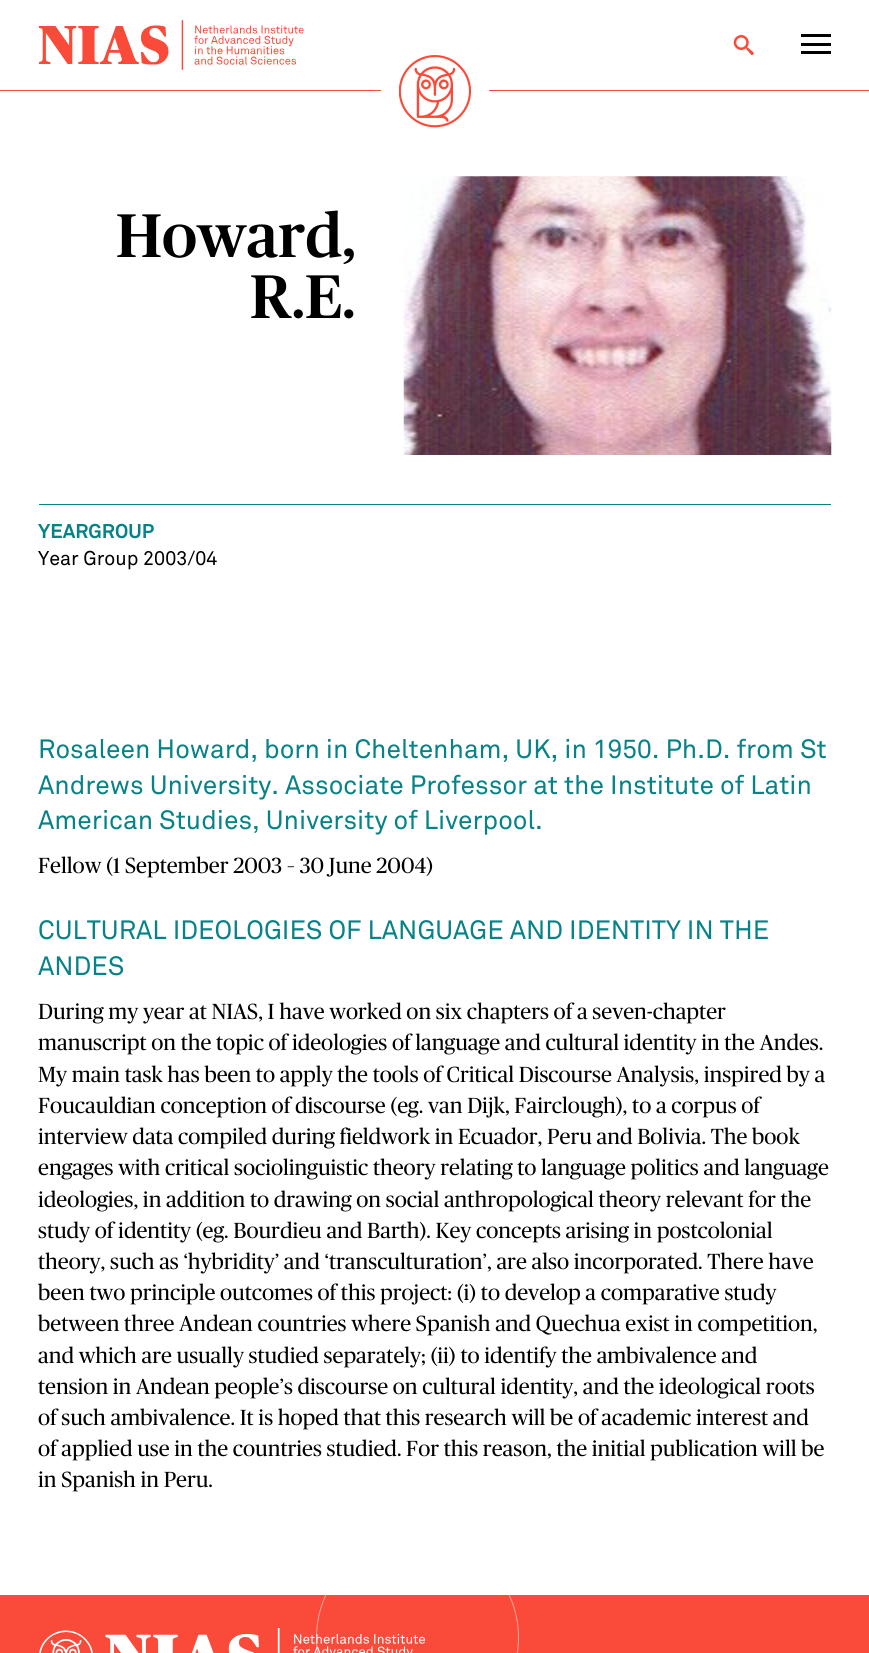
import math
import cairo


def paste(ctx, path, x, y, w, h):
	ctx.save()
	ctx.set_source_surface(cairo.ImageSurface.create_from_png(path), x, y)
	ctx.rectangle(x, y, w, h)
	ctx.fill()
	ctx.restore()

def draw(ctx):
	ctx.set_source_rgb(1, 1, 1)
	ctx.paint()
	paste(ctx, 'media/1.png', 39, 20, 265, 50)
	paste(ctx, 'media/2.png', 733, 35, 21, 20)
	ctx.set_source_rgb(0, 0, 0)
	ctx.rectangle(801, 34, 30, 3)
	ctx.rectangle(801, 43, 30, 3)
	ctx.rectangle(801, 51, 30, 3)
	ctx.fill()
	ctx.set_source_rgb(0.98, 0.29, 0.224)
	ctx.rectangle(0, 90, 381, 1)
	ctx.fill()
	paste(ctx, 'media/3.png', 399, 55, 72, 73)
	ctx.rectangle(489, 90, 380, 1)
	ctx.fill()
	ctx.select_font_face('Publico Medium')
	ctx.set_font_size(61.5)
	ctx.set_source_rgb(0, 0, 0)
	ctx.move_to(116, 257)
	ctx.show_text('Howard,')
	ctx.move_to(250, 318)
	ctx.show_text('R.E.')
	paste(ctx, 'media/4.png', 403, 176, 429, 279)
	ctx.set_source_rgb(0.031, 0.51, 0.525)
	ctx.rectangle(39, 504, 792, 1)
	ctx.fill()
	ctx.select_font_face('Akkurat', cairo.FONT_SLANT_NORMAL, cairo.FONT_WEIGHT_BOLD)
	ctx.set_font_size(19.75)
	ctx.move_to(38, 538)
	ctx.show_text('YEARGROUP')
	ctx.select_font_face('Akkurat')
	ctx.set_source_rgb(0, 0, 0)
	ctx.move_to(38, 565)
	ctx.show_text('Year Group 2003/04')
	ctx.set_font_size(26.25)
	ctx.set_source_rgb(0.031, 0.51, 0.525)
	for x, y, s in [
		(38, 758, 'Rosaleen Howard, born in Cheltenham, UK, in 1950. Ph.D. from St'),
		(38, 794, 'Andrews University. Associate Professor at the Institute of Latin'),
		(38, 829, 'American Studies, University of Liverpool.'),
	]:
		ctx.move_to(x, y)
		ctx.show_text(s)
	ctx.select_font_face('Publico')
	ctx.set_font_size(21.85)
	ctx.set_source_rgb(0, 0, 0)
	ctx.move_to(38, 873)
	ctx.show_text('Fellow (1 September 2003 – 30 June 2004)')
	ctx.select_font_face('Akkurat')
	ctx.set_font_size(26.25)
	ctx.set_source_rgb(0.031, 0.51, 0.525)
	ctx.move_to(38, 939)
	ctx.show_text('CULTURAL IDEOLOGIES OF LANGUAGE AND IDENTITY IN THE')
	ctx.move_to(38, 975)
	ctx.show_text('ANDES')
	ctx.select_font_face('Publico')
	ctx.set_font_size(21.85)
	ctx.set_source_rgb(0, 0, 0)
	for x, y, s in [
		(38, 1019, 'During my year at NIAS, I have worked on six chapters of a seven-chapter'),
		(38, 1050, 'manuscript on the topic of ideologies of language and cultural identity in the Andes.'),
		(38, 1082, 'My main task has been to apply the tools of Critical Discourse Analysis, inspired by a'),
		(38, 1113, 'Foucauldian conception of discourse (eg. van Dijk, Fairclough), to a corpus of'),
		(38, 1144, 'interview data compiled during fieldwork in Ecuador, Peru and Bolivia. The book'),
		(38, 1175, 'engages with critical sociolinguistic theory relating to language politics and language'),
		(38, 1207, 'ideologies, in addition to drawing on social anthropological theory relevant for the'),
		(38, 1238, 'study of identity (eg. Bourdieu and Barth). Key concepts arising in postcolonial'),
		(38, 1269, 'theory, such as ‘hybridity’ and ‘transculturation’, are also incorporated. There have'),
		(38, 1300, 'been two principle outcomes of this project: (i) to develop a comparative study'),
		(38, 1331, 'between three Andean countries where Spanish and Quechua exist in competition,'),
		(38, 1363, 'and which are usually studied separately; (ii) to identify the ambivalence and'),
		(38, 1394, 'tension in Andean people’s discourse on cultural identity, and the ideological roots'),
		(38, 1425, 'of such ambivalence. It is hoped that this research will be of academic interest and'),
		(38, 1456, 'of applied use in the countries studied. For this reason, the initial publication will be'),
		(38, 1487, 'in Spanish in Peru.'),
	]:
		ctx.move_to(x, y)
		ctx.show_text(s)
	ctx.set_source_rgb(0.98, 0.29, 0.224)
	ctx.rectangle(0, 1595, 869, 58)
	ctx.fill()
	paste(ctx, 'media/5.png', 39, 1628, 386, 25)
	ctx.save()
	ctx.rectangle(0, 1595, 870, 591)
	ctx.clip()
	ctx.arc(417.5, 1637.5, 101, 0, 2 * math.pi)
	ctx.set_source_rgba(1, 1, 1, 0.5)
	ctx.set_line_width(1)
	ctx.stroke()
	ctx.restore()


surface = cairo.ImageSurface(cairo.FORMAT_RGB24, 869, 1653)
ctx = cairo.Context(surface)
options = cairo.FontOptions()
options.set_hint_metrics(cairo.HINT_METRICS_OFF)
options.set_hint_style(cairo.HINT_STYLE_NONE)
ctx.set_font_options(options)
ctx.set_miter_limit(4)
draw(ctx)
surface.write_to_png('image.png')
